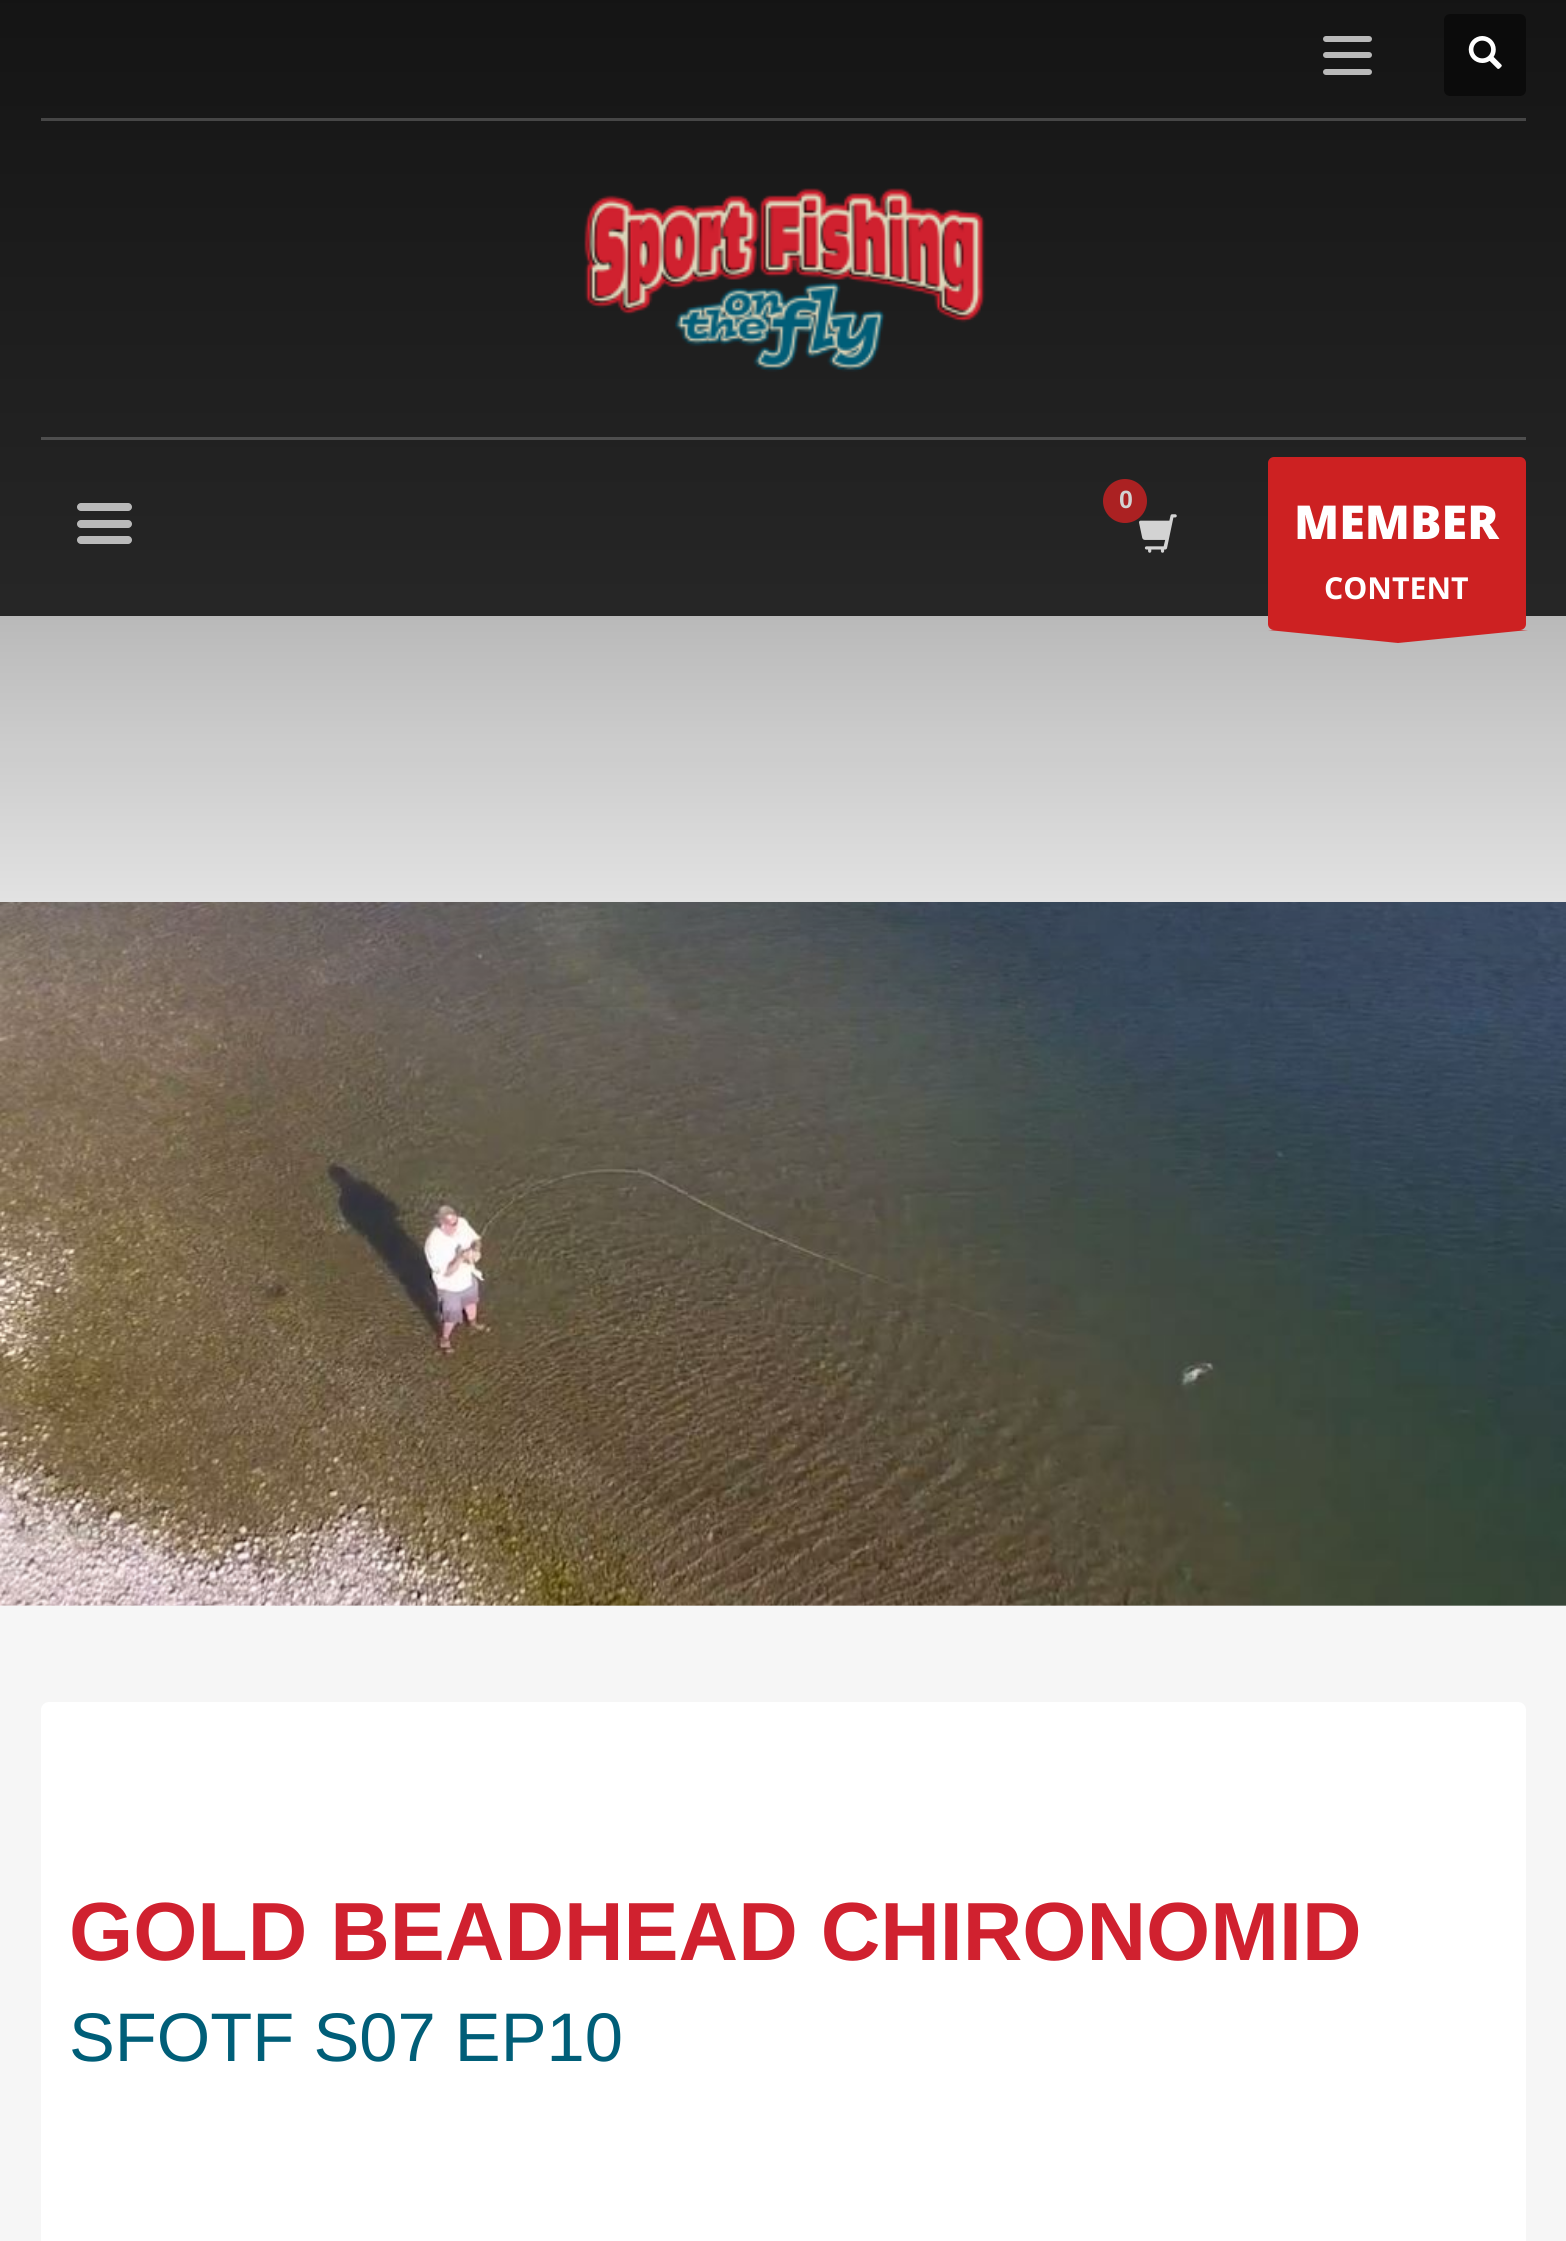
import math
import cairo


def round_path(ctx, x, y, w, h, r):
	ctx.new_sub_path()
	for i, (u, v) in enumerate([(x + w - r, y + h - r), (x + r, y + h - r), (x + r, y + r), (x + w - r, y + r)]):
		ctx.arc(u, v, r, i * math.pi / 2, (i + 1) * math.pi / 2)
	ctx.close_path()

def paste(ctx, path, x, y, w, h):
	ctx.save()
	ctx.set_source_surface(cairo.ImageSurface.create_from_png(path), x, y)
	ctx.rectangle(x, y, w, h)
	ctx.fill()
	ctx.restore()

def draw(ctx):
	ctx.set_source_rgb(0.961, 0.961, 0.961)
	ctx.paint()
	ctx.set_source_rgb(0.2, 0.2, 0.2)
	ctx.rectangle(0, 0, 1566, 616)
	ctx.fill()
	paste(ctx, 'media/4.png', 0, 902, 1566, 704)
	gradient = cairo.LinearGradient(784, 0, 784, 1045)
	gradient.add_color_stop_rgba(0, 0, 0, 0, 0.6)
	gradient.add_color_stop_rgba(1, 0, 0, 0, 0)
	ctx.set_source(gradient)
	ctx.rectangle(0, 0, 1566, 1007)
	ctx.fill()
	ctx.set_source_rgb(0.725, 0.725, 0.725)
	round_path(ctx, 1323, 69, 49, 6, 3)
	ctx.fill()
	round_path(ctx, 1323, 52, 49, 6, 3)
	ctx.fill()
	round_path(ctx, 1323, 36, 49, 6, 3)
	ctx.fill()
	ctx.set_source_rgb(0.043, 0.043, 0.043)
	round_path(ctx, 1444, 14, 82, 82, 6)
	ctx.fill()
	paste(ctx, 'media/1.png', 1468, 36, 34, 33)
	ctx.set_source_rgb(0.275, 0.275, 0.275)
	ctx.rectangle(41, 118, 1485, 3)
	ctx.fill()
	paste(ctx, 'media/2.png', 584, 188, 402, 184)
	ctx.set_source_rgb(0.306, 0.306, 0.306)
	ctx.rectangle(41, 437, 1485, 3)
	ctx.fill()
	ctx.set_source_rgb(0.725, 0.725, 0.725)
	round_path(ctx, 77, 503, 55, 8, 4)
	ctx.fill()
	round_path(ctx, 77, 520, 55, 8, 4)
	ctx.fill()
	round_path(ctx, 77, 536, 55, 8, 4)
	ctx.fill()
	paste(ctx, 'media/3.png', 1139, 514, 38, 39)
	ctx.set_source_rgb(0.671, 0.129, 0.133)
	ctx.arc(1125, 501, 22, 0, 2 * math.pi)
	ctx.fill()
	ctx.select_font_face('Liberation Sans', cairo.FONT_SLANT_NORMAL, cairo.FONT_WEIGHT_BOLD)
	ctx.set_font_size(25)
	ctx.set_source_rgb(0.827, 0.827, 0.827)
	ctx.move_to(1119, 508)
	ctx.show_text('0')
	ctx.set_source_rgb(0.804, 0.129, 0.133)
	round_path(ctx, 1268, 457, 258, 173, 6)
	ctx.fill()
	ctx.select_font_face('Open Sans ExtraBold')
	ctx.set_font_size(46.75)
	ctx.set_source_rgb(1, 1, 1)
	ctx.move_to(1294, 539)
	ctx.show_text('MEMBER')
	ctx.select_font_face('Open Sans', cairo.FONT_SLANT_NORMAL, cairo.FONT_WEIGHT_BOLD)
	ctx.set_font_size(30.25)
	ctx.move_to(1324, 599)
	ctx.show_text('CONTENT')
	ctx.set_source_rgb(0.804, 0.129, 0.133)
	ctx.set_fill_rule(cairo.FILL_RULE_EVEN_ODD)
	ctx.new_path()
	ctx.move_to(1528, 630)
	ctx.line_to(1398, 643)
	ctx.line_to(1268, 630)
	ctx.close_path()
	ctx.fill()
	ctx.set_source_rgb(1, 1, 1)
	round_path(ctx, 41, 1702, 1485, 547, 8)
	ctx.fill()
	ctx.select_font_face('Liberation Sans', cairo.FONT_SLANT_NORMAL, cairo.FONT_WEIGHT_BOLD)
	ctx.set_font_size(82.5)
	ctx.set_source_rgb(0.816, 0.129, 0.184)
	ctx.move_to(69, 1960)
	ctx.show_text('GOLD BEADHEAD CHIRONOMID')
	ctx.select_font_face('Liberation Sans')
	ctx.set_font_size(68.75)
	ctx.set_source_rgb(0, 0.369, 0.471)
	ctx.move_to(69, 2061)
	ctx.show_text('SFOTF S07 EP10')


surface = cairo.ImageSurface(cairo.FORMAT_RGB24, 1566, 2241)
ctx = cairo.Context(surface)
options = cairo.FontOptions()
options.set_hint_metrics(cairo.HINT_METRICS_OFF)
options.set_hint_style(cairo.HINT_STYLE_NONE)
ctx.set_font_options(options)
ctx.set_miter_limit(4)
draw(ctx)
surface.write_to_png('image.png')
